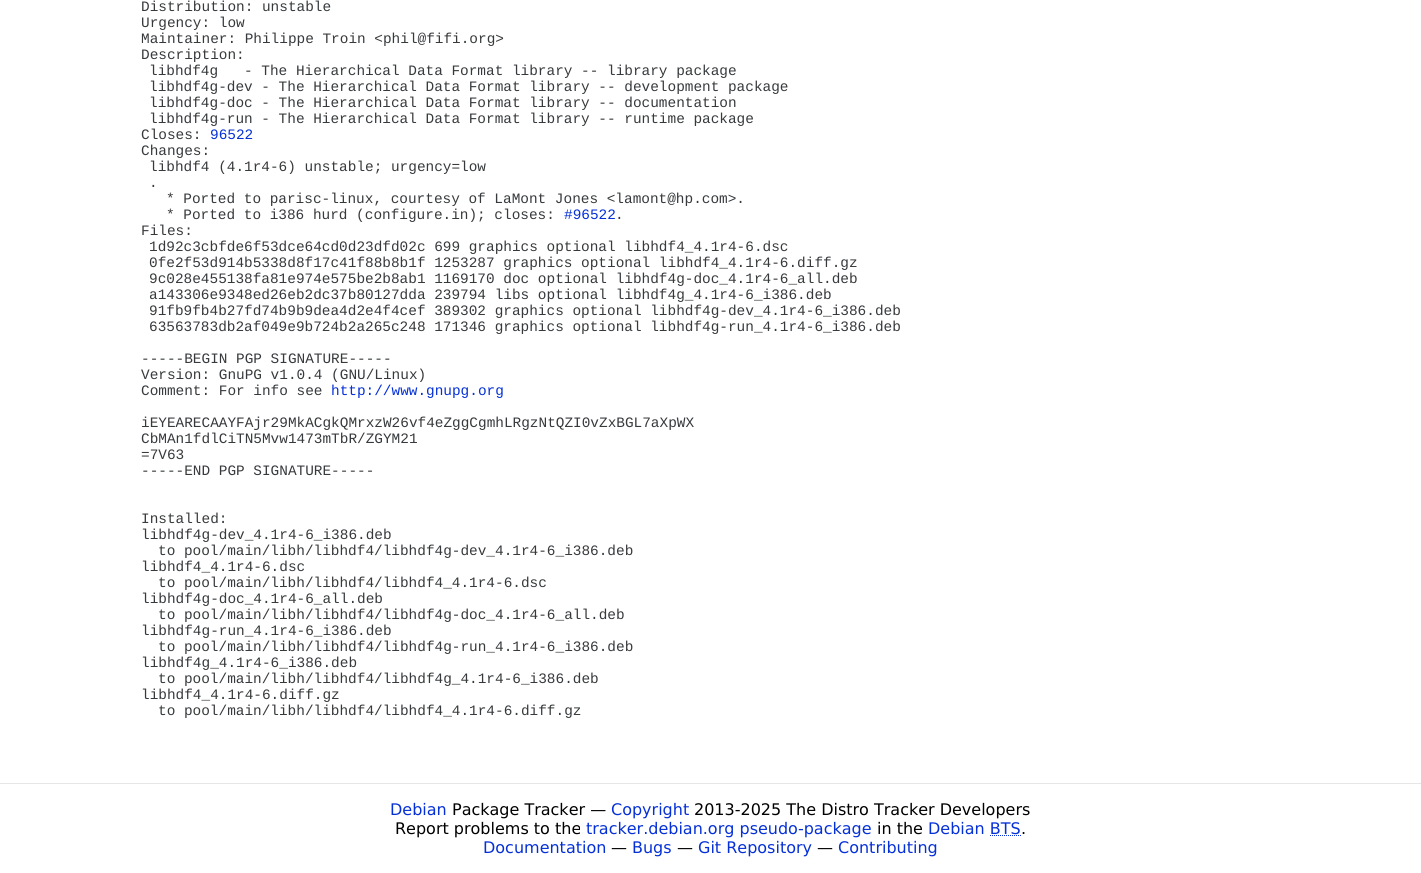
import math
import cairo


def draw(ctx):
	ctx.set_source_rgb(1, 1, 1)
	ctx.paint()
	ctx.select_font_face('Liberation Mono')
	ctx.set_font_size(14.4)
	ctx.set_source_rgb(0.216, 0.227, 0.235)
	for x, y, s in [
		(141, 11, 'Distribution: unstable'),
		(141, 27, 'Urgency: low'),
		(141, 43, 'Maintainer: Philippe Troin <phil@fifi.org>'),
		(141, 59, 'Description:'),
		(149, 75, 'libhdf4g   - The Hierarchical Data Format library -- library package'),
		(149, 91, 'libhdf4g-dev - The Hierarchical Data Format library -- development package'),
		(149, 107, 'libhdf4g-doc - The Hierarchical Data Format library -- documentation'),
		(149, 123, 'libhdf4g-run - The Hierarchical Data Format library -- runtime package'),
		(141, 139, 'Closes:'),
	]:
		ctx.move_to(x, y)
		ctx.show_text(s)
	ctx.set_source_rgb(0.02, 0.188, 0.843)
	ctx.move_to(210, 139)
	ctx.show_text('96522')
	ctx.set_source_rgb(0.216, 0.227, 0.235)
	for x, y, s in [
		(141, 155, 'Changes:'),
		(149, 171, 'libhdf4 (4.1r4-6) unstable; urgency=low'),
		(149, 187, '.'),
		(166, 203, '* Ported to parisc-linux, courtesy of LaMont Jones <lamont@hp.com>.'),
		(166, 219, '* Ported to i386 hurd (configure.in); closes:'),
	]:
		ctx.move_to(x, y)
		ctx.show_text(s)
	ctx.set_source_rgb(0.02, 0.188, 0.843)
	ctx.move_to(564, 219)
	ctx.show_text('#96522')
	ctx.set_source_rgb(0.216, 0.227, 0.235)
	for x, y, s in [
		(615, 219, '.'),
		(141, 235, 'Files:'),
		(149, 251, '1d92c3cbfde6f53dce64cd0d23dfd02c 699 graphics optional libhdf4_4.1r4-6.dsc'),
		(149, 267, '0fe2f53d914b5338d8f17c41f88b8b1f 1253287 graphics optional libhdf4_4.1r4-6.diff.gz'),
		(149, 283, '9c028e455138fa81e974e575be2b8ab1 1169170 doc optional libhdf4g-doc_4.1r4-6_all.deb'),
		(149, 299, 'a143306e9348ed26eb2dc37b80127dda 239794 libs optional libhdf4g_4.1r4-6_i386.deb'),
		(149, 315, '91fb9fb4b27fd74b9b9dea4d2e4f4cef 389302 graphics optional libhdf4g-dev_4.1r4-6_i386.deb'),
		(149, 331, '63563783db2af049e9b724b2a265c248 171346 graphics optional libhdf4g-run_4.1r4-6_i386.deb'),
		(141, 363, '-----BEGIN PGP SIGNATURE-----'),
		(141, 379, 'Version: GnuPG v1.0.4 (GNU/Linux)'),
		(141, 395, 'Comment: For info see'),
	]:
		ctx.move_to(x, y)
		ctx.show_text(s)
	ctx.set_source_rgb(0.02, 0.188, 0.843)
	ctx.move_to(331, 395)
	ctx.show_text('http://www.gnupg.org')
	ctx.set_source_rgb(0.216, 0.227, 0.235)
	for x, y, s in [
		(141, 427, 'iEYEARECAAYFAjr29MkACgkQMrxzW26vf4eZggCgmhLRgzNtQZI0vZxBGL7aXpWX'),
		(141, 443, 'CbMAn1fdlCiTN5Mvw1473mTbR/ZGYM21'),
		(141, 459, '=7V63'),
		(141, 475, '-----END PGP SIGNATURE-----'),
		(141, 523, 'Installed:'),
		(141, 539, 'libhdf4g-dev_4.1r4-6_i386.deb'),
		(158, 555, 'to pool/main/libh/libhdf4/libhdf4g-dev_4.1r4-6_i386.deb'),
		(141, 571, 'libhdf4_4.1r4-6.dsc'),
		(158, 587, 'to pool/main/libh/libhdf4/libhdf4_4.1r4-6.dsc'),
		(141, 603, 'libhdf4g-doc_4.1r4-6_all.deb'),
		(158, 619, 'to pool/main/libh/libhdf4/libhdf4g-doc_4.1r4-6_all.deb'),
		(141, 635, 'libhdf4g-run_4.1r4-6_i386.deb'),
		(158, 651, 'to pool/main/libh/libhdf4/libhdf4g-run_4.1r4-6_i386.deb'),
		(141, 667, 'libhdf4g_4.1r4-6_i386.deb'),
		(158, 683, 'to pool/main/libh/libhdf4/libhdf4g_4.1r4-6_i386.deb'),
		(141, 699, 'libhdf4_4.1r4-6.diff.gz'),
		(158, 715, 'to pool/main/libh/libhdf4/libhdf4_4.1r4-6.diff.gz'),
	]:
		ctx.move_to(x, y)
		ctx.show_text(s)
	ctx.set_source_rgb(0.902, 0.902, 0.902)
	ctx.rectangle(0, 783, 1421, 1)
	ctx.fill()
	ctx.select_font_face('DejaVu Sans')
	ctx.set_font_size(16)
	ctx.set_source_rgb(0.02, 0.188, 0.843)
	ctx.move_to(390, 815)
	ctx.show_text('Debian')
	ctx.set_source_rgb(0, 0, 0)
	ctx.move_to(452, 815)
	ctx.show_text('Package Tracker —')
	ctx.set_source_rgb(0.02, 0.188, 0.843)
	ctx.move_to(611, 815)
	ctx.show_text('Copyright')
	ctx.set_source_rgb(0, 0, 0)
	ctx.move_to(694, 815)
	ctx.show_text('2013-2025 The Distro Tracker Developers')
	ctx.move_to(395, 834)
	ctx.show_text('Report problems to the')
	ctx.set_source_rgb(0.02, 0.188, 0.843)
	ctx.move_to(586, 834)
	ctx.show_text('tracker.debian.org pseudo-package')
	ctx.set_source_rgb(0, 0, 0)
	ctx.move_to(877, 834)
	ctx.show_text('in the')
	ctx.set_source_rgb(0.02, 0.188, 0.843)
	ctx.move_to(928, 834)
	ctx.show_text('Debian BTS')
	ctx.new_path()
	ctx.move_to(990, 835.5)
	ctx.line_to(1021, 835.5)
	ctx.set_line_width(1)
	ctx.set_dash([1, 1])
	ctx.stroke()
	ctx.set_source_rgb(0, 0, 0)
	ctx.move_to(1021, 834)
	ctx.show_text('.')
	ctx.set_source_rgb(0.02, 0.188, 0.843)
	ctx.move_to(483, 853)
	ctx.show_text('Documentation')
	ctx.set_source_rgb(0, 0, 0)
	ctx.move_to(611, 853)
	ctx.show_text('—')
	ctx.set_source_rgb(0.02, 0.188, 0.843)
	ctx.move_to(632, 853)
	ctx.show_text('Bugs')
	ctx.set_source_rgb(0, 0, 0)
	ctx.move_to(677, 853)
	ctx.show_text('—')
	ctx.set_source_rgb(0.02, 0.188, 0.843)
	ctx.move_to(698, 853)
	ctx.show_text('Git Repository')
	ctx.set_source_rgb(0, 0, 0)
	ctx.move_to(817, 853)
	ctx.show_text('—')
	ctx.set_source_rgb(0.02, 0.188, 0.843)
	ctx.move_to(838, 853)
	ctx.show_text('Contributing')


surface = cairo.ImageSurface(cairo.FORMAT_RGB24, 1421, 873)
ctx = cairo.Context(surface)
options = cairo.FontOptions()
options.set_hint_metrics(cairo.HINT_METRICS_OFF)
options.set_hint_style(cairo.HINT_STYLE_NONE)
ctx.set_font_options(options)
ctx.set_miter_limit(4)
draw(ctx)
surface.write_to_png('image.png')
